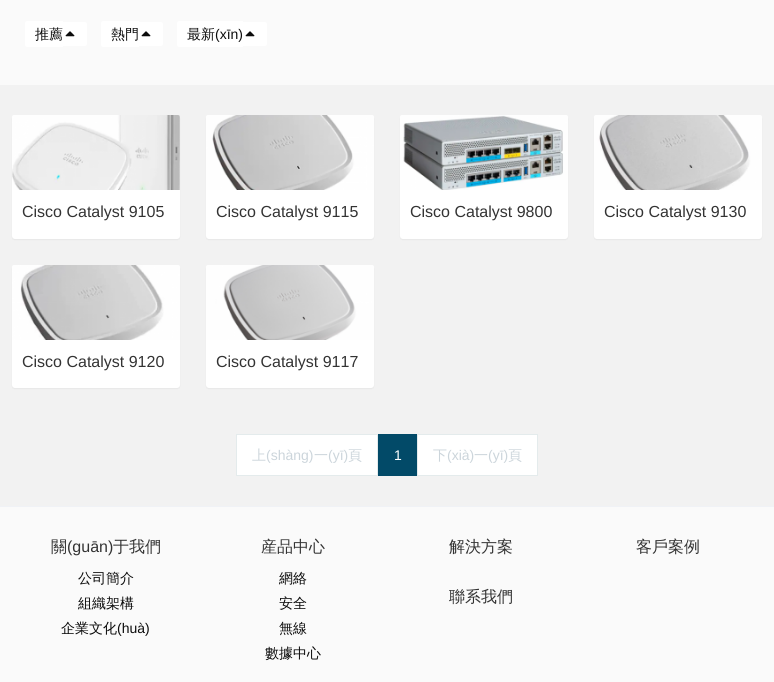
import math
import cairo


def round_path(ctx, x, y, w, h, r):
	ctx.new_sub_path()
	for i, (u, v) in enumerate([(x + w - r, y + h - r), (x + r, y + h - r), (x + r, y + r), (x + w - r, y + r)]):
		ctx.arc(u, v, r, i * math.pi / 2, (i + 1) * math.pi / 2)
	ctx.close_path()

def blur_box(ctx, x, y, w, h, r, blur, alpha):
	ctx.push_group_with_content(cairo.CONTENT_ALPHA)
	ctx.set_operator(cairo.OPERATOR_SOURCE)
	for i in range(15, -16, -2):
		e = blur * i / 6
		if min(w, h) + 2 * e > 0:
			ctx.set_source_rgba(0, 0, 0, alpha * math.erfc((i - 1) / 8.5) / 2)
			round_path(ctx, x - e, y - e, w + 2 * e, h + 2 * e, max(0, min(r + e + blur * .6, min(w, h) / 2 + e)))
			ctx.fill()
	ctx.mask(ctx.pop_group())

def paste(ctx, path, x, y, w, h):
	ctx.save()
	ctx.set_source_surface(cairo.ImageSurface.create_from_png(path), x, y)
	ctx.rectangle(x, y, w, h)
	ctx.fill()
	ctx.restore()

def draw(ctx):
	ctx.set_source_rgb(0.98, 0.98, 0.98)
	ctx.paint()
	ctx.set_source_rgb(1, 1, 1)
	ctx.new_path()
	ctx.move_to(27, 21)
	ctx.line_to(63, 21)
	ctx.line_to(63, 47)
	ctx.line_to(27, 47)
	ctx.curve_to(26, 47, 25, 46, 25, 45)
	ctx.line_to(25, 23)
	ctx.curve_to(25, 22, 26, 21, 27, 21)
	ctx.close_path()
	ctx.fill()
	ctx.new_path()
	ctx.move_to(63, 22)
	ctx.line_to(85, 22)
	ctx.curve_to(86, 22, 87, 23, 87, 24)
	ctx.line_to(87, 44)
	ctx.curve_to(87, 45, 86, 46, 85, 46)
	ctx.line_to(63, 46)
	ctx.close_path()
	ctx.fill()
	ctx.select_font_face('WenQuanYi Zen Hei Medium')
	ctx.set_font_size(14)
	ctx.set_source_rgb(0.047, 0.047, 0.047)
	ctx.move_to(35, 39)
	ctx.show_text('推薦')
	paste(ctx, 'media/1.png', 65, 31, 10, 6)
	ctx.set_source_rgb(1, 1, 1)
	ctx.new_path()
	ctx.move_to(103, 21)
	ctx.line_to(139, 21)
	ctx.line_to(139, 47)
	ctx.line_to(103, 47)
	ctx.curve_to(102, 47, 101, 46, 101, 45)
	ctx.line_to(101, 23)
	ctx.curve_to(101, 22, 102, 21, 103, 21)
	ctx.close_path()
	ctx.fill()
	ctx.new_path()
	ctx.move_to(139, 22)
	ctx.line_to(161, 22)
	ctx.curve_to(162, 22, 163, 23, 163, 24)
	ctx.line_to(163, 44)
	ctx.curve_to(163, 45, 162, 46, 161, 46)
	ctx.line_to(139, 46)
	ctx.close_path()
	ctx.fill()
	ctx.set_source_rgb(0.047, 0.047, 0.047)
	ctx.move_to(111, 39)
	ctx.show_text('熱門')
	paste(ctx, 'media/1.png', 141, 31, 10, 6)
	ctx.set_source_rgb(1, 1, 1)
	ctx.new_path()
	ctx.move_to(179, 21)
	ctx.line_to(243, 21)
	ctx.line_to(243, 47)
	ctx.line_to(179, 47)
	ctx.curve_to(178, 47, 177, 46, 177, 45)
	ctx.line_to(177, 23)
	ctx.curve_to(177, 22, 178, 21, 179, 21)
	ctx.close_path()
	ctx.fill()
	ctx.new_path()
	ctx.move_to(243, 22)
	ctx.line_to(265, 22)
	ctx.curve_to(266, 22, 267, 23, 267, 24)
	ctx.line_to(267, 44)
	ctx.curve_to(267, 45, 266, 46, 265, 46)
	ctx.line_to(243, 46)
	ctx.close_path()
	ctx.fill()
	ctx.set_source_rgb(0.047, 0.047, 0.047)
	ctx.move_to(187, 39)
	ctx.show_text('最新')
	ctx.select_font_face('Liberation Sans')
	ctx.move_to(215, 39)
	ctx.show_text('(xīn)')
	paste(ctx, 'media/1.png', 245, 31, 10, 6)
	ctx.set_source_rgb(0.949, 0.949, 0.949)
	ctx.rectangle(0, 85, 774, 421)
	ctx.fill()
	ctx.set_source_rgb(0, 0, 0)
	blur_box(ctx, 12, 116, 168, 124, 3, 0.5, 0.05)
	ctx.set_source_rgb(1, 1, 1)
	round_path(ctx, 12, 115, 168, 124, 3)
	ctx.fill()
	paste(ctx, 'media/2.png', 12, 115, 168, 75)
	ctx.set_font_size(16)
	ctx.set_source_rgb(0.2, 0.2, 0.2)
	ctx.move_to(22, 217)
	ctx.show_text('Cisco Catalyst 9105')
	ctx.set_source_rgb(0, 0, 0)
	blur_box(ctx, 206, 116, 168, 124, 3, 0.5, 0.05)
	ctx.set_source_rgb(1, 1, 1)
	round_path(ctx, 206, 115, 168, 124, 3)
	ctx.fill()
	paste(ctx, 'media/3.png', 206, 115, 168, 75)
	ctx.set_source_rgb(0.2, 0.2, 0.2)
	ctx.move_to(216, 217)
	ctx.show_text('Cisco Catalyst 9115')
	ctx.set_source_rgb(0, 0, 0)
	blur_box(ctx, 400, 116, 168, 124, 3, 0.5, 0.05)
	ctx.set_source_rgb(1, 1, 1)
	round_path(ctx, 400, 115, 168, 124, 3)
	ctx.fill()
	paste(ctx, 'media/4.png', 400, 115, 168, 75)
	ctx.set_source_rgb(0.2, 0.2, 0.2)
	ctx.move_to(410, 217)
	ctx.show_text('Cisco Catalyst 9800')
	ctx.set_source_rgb(0, 0, 0)
	blur_box(ctx, 594, 116, 168, 124, 3, 0.5, 0.05)
	ctx.set_source_rgb(1, 1, 1)
	round_path(ctx, 594, 115, 168, 124, 3)
	ctx.fill()
	paste(ctx, 'media/5.png', 594, 115, 168, 75)
	ctx.set_source_rgb(0.2, 0.2, 0.2)
	ctx.move_to(604, 217)
	ctx.show_text('Cisco Catalyst 9130')
	ctx.set_source_rgb(0, 0, 0)
	blur_box(ctx, 12, 266, 168, 123, 3, 0.5, 0.05)
	ctx.set_source_rgb(1, 1, 1)
	round_path(ctx, 12, 265, 168, 123, 3)
	ctx.fill()
	paste(ctx, 'media/6.png', 12, 265, 168, 75)
	ctx.set_source_rgb(0.2, 0.2, 0.2)
	ctx.move_to(22, 367)
	ctx.show_text('Cisco Catalyst 9120')
	ctx.set_source_rgb(0, 0, 0)
	blur_box(ctx, 206, 266, 168, 123, 3, 0.5, 0.05)
	ctx.set_source_rgb(1, 1, 1)
	round_path(ctx, 206, 265, 168, 123, 3)
	ctx.fill()
	paste(ctx, 'media/7.png', 206, 265, 168, 75)
	ctx.set_source_rgb(0.2, 0.2, 0.2)
	ctx.move_to(216, 367)
	ctx.show_text('Cisco Catalyst 9117')
	ctx.set_source_rgb(1, 1, 1)
	ctx.rectangle(236.5, 434.5, 141, 41)
	ctx.fill_preserve()
	ctx.set_source_rgb(0.894, 0.918, 0.925)
	ctx.set_line_width(1)
	ctx.stroke()
	ctx.select_font_face('WenQuanYi Zen Hei Medium')
	ctx.set_font_size(14)
	ctx.set_source_rgb(0.8, 0.835, 0.859)
	ctx.move_to(252, 460)
	ctx.show_text('上')
	ctx.select_font_face('Liberation Sans')
	ctx.move_to(266, 460)
	ctx.show_text('(shàng)')
	ctx.select_font_face('WenQuanYi Zen Hei Medium')
	ctx.move_to(314, 460)
	ctx.show_text('一')
	ctx.select_font_face('Liberation Sans')
	ctx.move_to(328, 460)
	ctx.show_text('(yī)')
	ctx.select_font_face('WenQuanYi Zen Hei Medium')
	ctx.move_to(348, 460)
	ctx.show_text('頁')
	ctx.set_source_rgb(0.008, 0.29, 0.408)
	ctx.rectangle(378, 434, 39, 42)
	ctx.fill()
	ctx.select_font_face('Liberation Sans')
	ctx.set_source_rgb(1, 1, 1)
	ctx.move_to(394, 460)
	ctx.show_text('1')
	ctx.rectangle(417.5, 434.5, 120, 41)
	ctx.fill_preserve()
	ctx.set_source_rgb(0.894, 0.918, 0.925)
	ctx.stroke()
	ctx.select_font_face('WenQuanYi Zen Hei Medium')
	ctx.set_source_rgb(0.8, 0.835, 0.859)
	ctx.move_to(433, 460)
	ctx.show_text('下')
	ctx.select_font_face('Liberation Sans')
	ctx.move_to(447, 460)
	ctx.show_text('(xià)')
	ctx.select_font_face('WenQuanYi Zen Hei Medium')
	ctx.move_to(474, 460)
	ctx.show_text('一')
	ctx.select_font_face('Liberation Sans')
	ctx.move_to(488, 460)
	ctx.show_text('(yī)')
	ctx.select_font_face('WenQuanYi Zen Hei Medium')
	ctx.move_to(508, 460)
	ctx.show_text('頁')
	ctx.set_source_rgb(0.941, 0.949, 0.961)
	ctx.rectangle(0, 506, 774, 1)
	ctx.fill()
	ctx.set_font_size(16)
	ctx.set_source_rgb(0.2, 0.2, 0.2)
	ctx.move_to(51, 552)
	ctx.show_text('關')
	ctx.select_font_face('Liberation Sans')
	ctx.move_to(67, 552)
	ctx.show_text('(guān)')
	ctx.select_font_face('WenQuanYi Zen Hei Medium')
	ctx.move_to(113, 552)
	ctx.show_text('于我們')
	ctx.set_font_size(14)
	ctx.set_source_rgb(0.047, 0.047, 0.047)
	for x, y, s in [
		(78, 583, '公司簡介'),
		(78, 608, '組織架構'),
		(61, 633, '企業文化'),
	]:
		ctx.move_to(x, y)
		ctx.show_text(s)
	ctx.select_font_face('Liberation Sans')
	ctx.move_to(117, 633)
	ctx.show_text('(huà)')
	ctx.select_font_face('WenQuanYi Zen Hei Medium')
	ctx.set_font_size(16)
	ctx.set_source_rgb(0.2, 0.2, 0.2)
	ctx.move_to(261, 552)
	ctx.show_text('産品中心')
	ctx.set_font_size(14)
	ctx.set_source_rgb(0.047, 0.047, 0.047)
	for x, y, s in [
		(279, 583, '網絡'),
		(279, 608, '安全'),
		(279, 633, '無線'),
		(265, 658, '數據中心'),
	]:
		ctx.move_to(x, y)
		ctx.show_text(s)
	ctx.set_font_size(16)
	ctx.set_source_rgb(0.2, 0.2, 0.2)
	for x, y, s in [
		(449, 552, '解決方案'),
		(636, 552, '客戶案例'),
		(449, 602, '聯系我們'),
	]:
		ctx.move_to(x, y)
		ctx.show_text(s)


surface = cairo.ImageSurface(cairo.FORMAT_RGB24, 774, 682)
ctx = cairo.Context(surface)
options = cairo.FontOptions()
options.set_hint_metrics(cairo.HINT_METRICS_OFF)
options.set_hint_style(cairo.HINT_STYLE_NONE)
ctx.set_font_options(options)
ctx.set_miter_limit(4)
draw(ctx)
surface.write_to_png('image.png')
